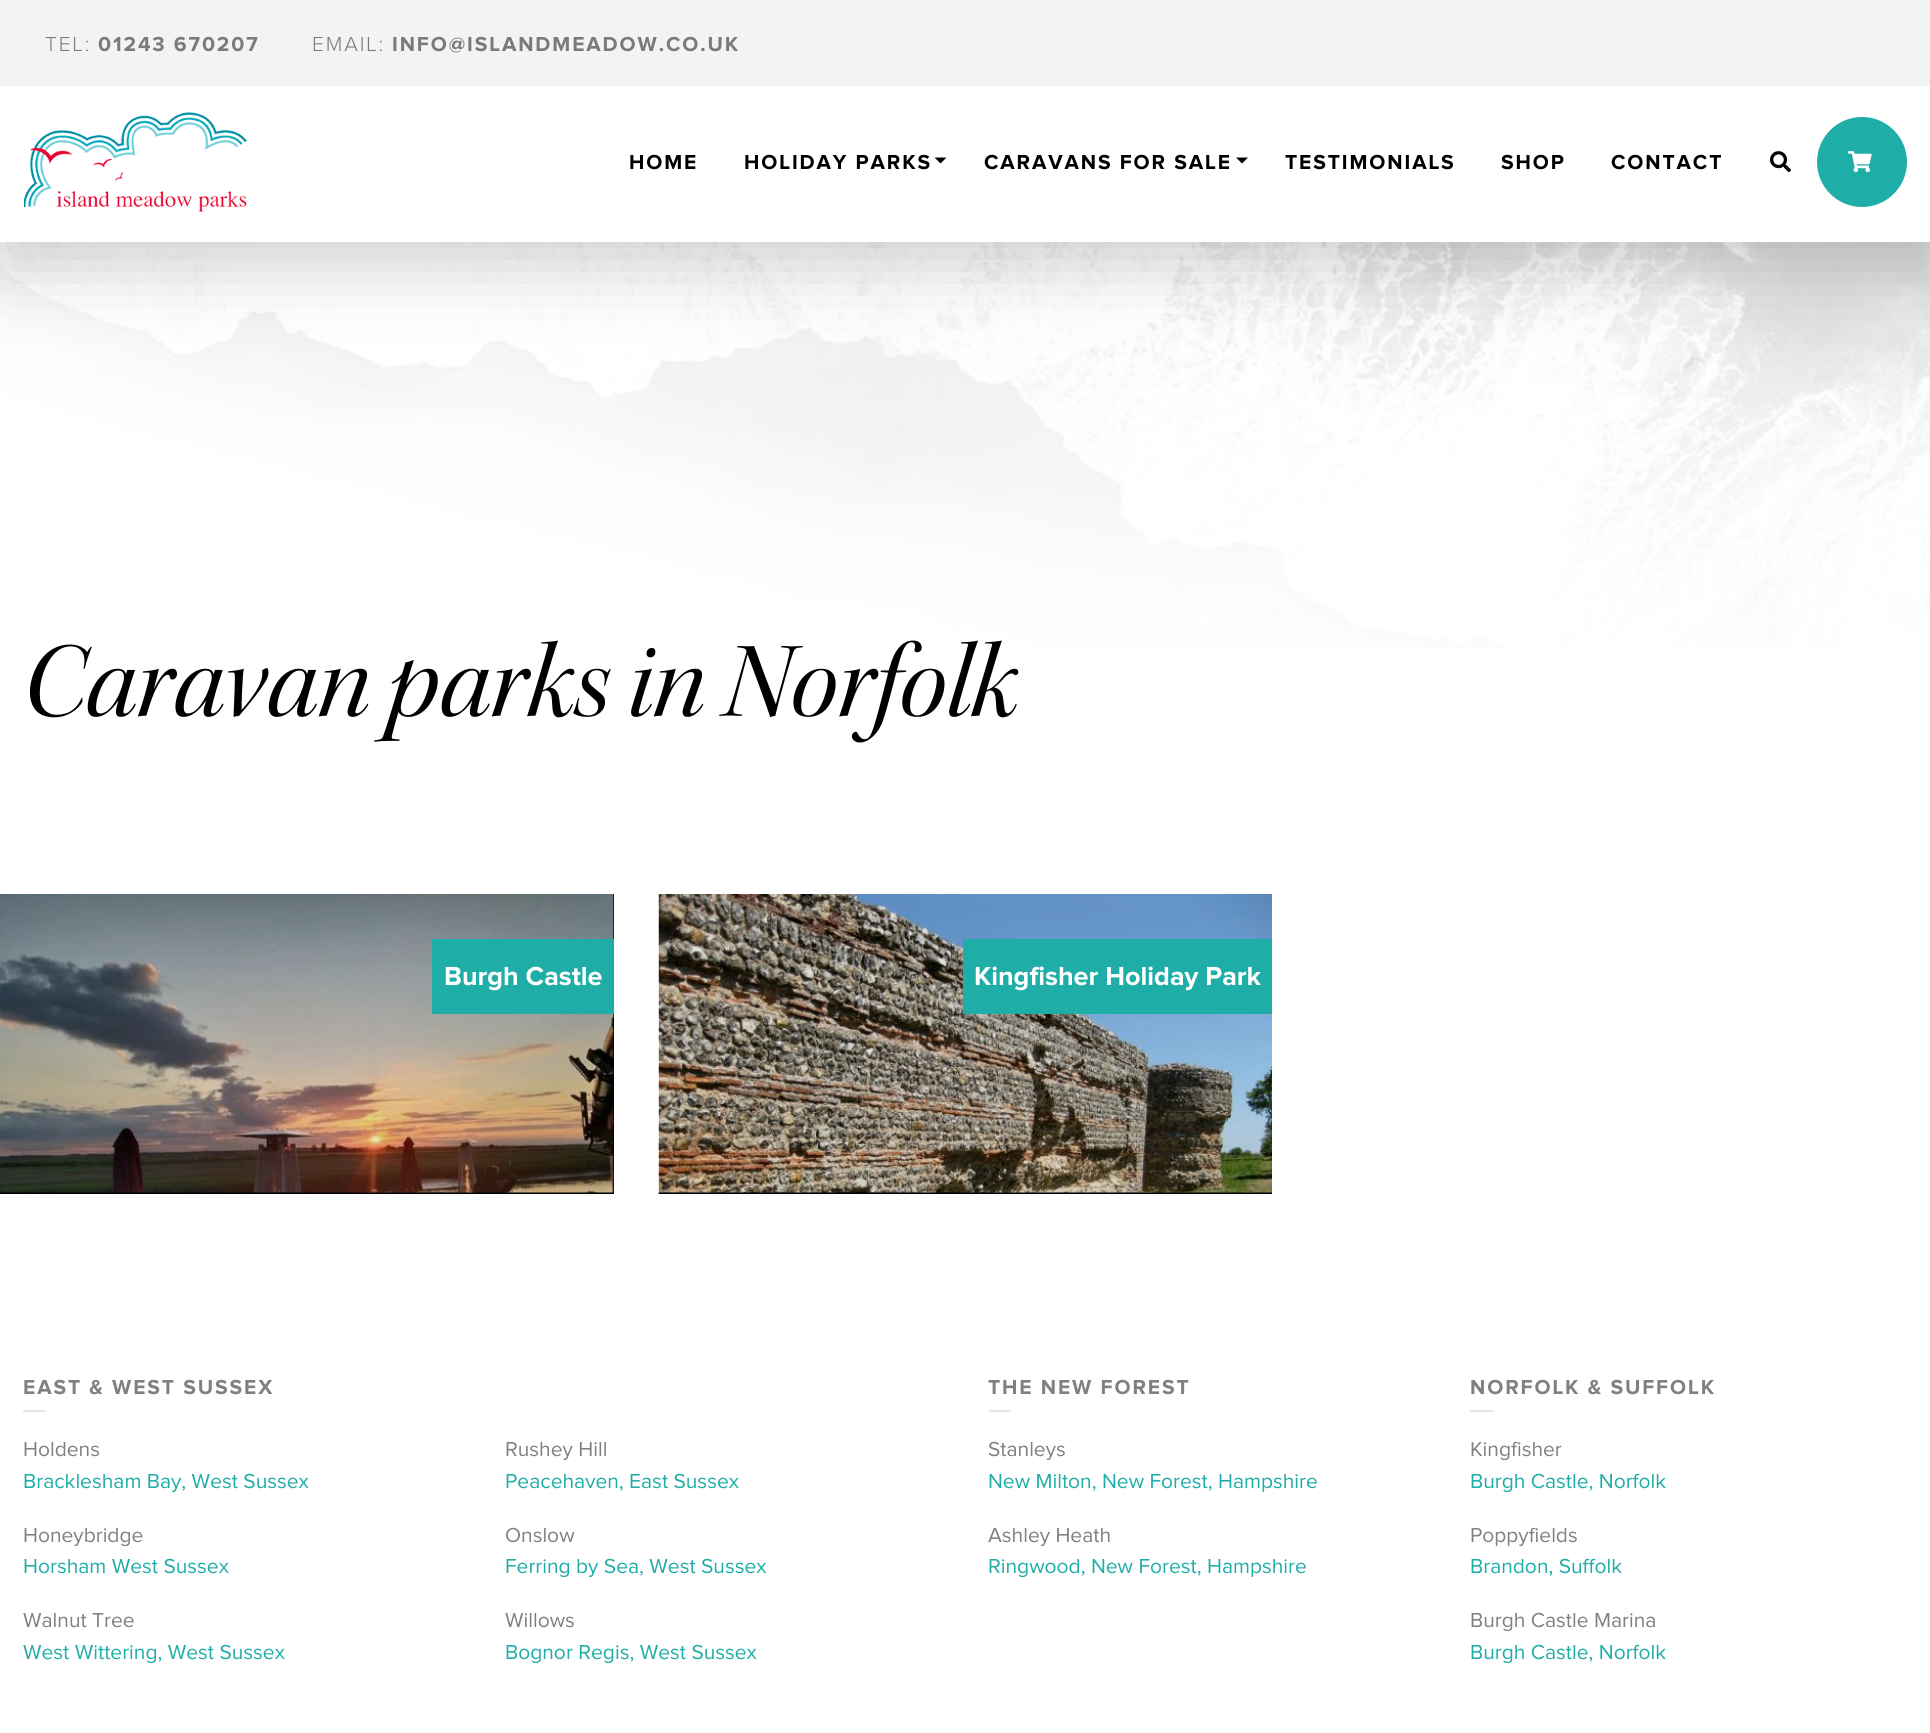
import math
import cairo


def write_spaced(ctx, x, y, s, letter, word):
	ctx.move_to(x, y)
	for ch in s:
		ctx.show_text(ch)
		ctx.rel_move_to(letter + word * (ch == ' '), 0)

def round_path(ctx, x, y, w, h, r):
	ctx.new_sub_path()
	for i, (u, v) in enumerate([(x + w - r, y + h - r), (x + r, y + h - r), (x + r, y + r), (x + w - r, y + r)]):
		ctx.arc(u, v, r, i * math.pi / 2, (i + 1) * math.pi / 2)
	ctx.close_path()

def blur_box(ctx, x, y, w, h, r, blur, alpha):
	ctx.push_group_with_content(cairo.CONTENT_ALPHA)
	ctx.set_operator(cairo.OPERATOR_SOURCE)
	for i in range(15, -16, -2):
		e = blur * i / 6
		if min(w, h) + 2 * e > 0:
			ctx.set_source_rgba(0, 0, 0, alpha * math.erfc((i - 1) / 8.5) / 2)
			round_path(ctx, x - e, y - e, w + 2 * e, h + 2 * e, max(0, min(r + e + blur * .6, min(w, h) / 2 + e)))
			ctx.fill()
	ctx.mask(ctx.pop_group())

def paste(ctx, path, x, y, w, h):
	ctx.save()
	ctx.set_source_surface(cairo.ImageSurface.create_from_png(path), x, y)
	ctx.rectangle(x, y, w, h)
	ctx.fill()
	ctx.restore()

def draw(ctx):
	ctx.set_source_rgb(1, 1, 1)
	ctx.paint()
	paste(ctx, 'media/6.png', 0, 242, 1930, 406)
	ctx.set_source_rgb(0, 0, 0)
	blur_box(ctx, 0, 24, 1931, 242, 0, 36, 0.18)
	ctx.set_source_rgb(1, 1, 1)
	ctx.rectangle(0, 86, 1930, 156)
	ctx.fill()
	ctx.set_source_rgb(0.953, 0.953, 0.953)
	ctx.rectangle(0, 0, 1930, 86)
	ctx.fill()
	paste(ctx, 'media/1.png', 45, 37, 43, 15)
	ctx.select_font_face('Proxima Nova', cairo.FONT_SLANT_NORMAL, cairo.FONT_WEIGHT_BOLD)
	ctx.set_font_size(21)
	ctx.set_source_rgb(0.478, 0.478, 0.478)
	write_spaced(ctx, 98, 51, '01243 670207', 1.9, 0)
	paste(ctx, 'media/2.png', 313, 37, 69, 15)
	write_spaced(ctx, 392, 51, 'INFO@ISLANDMEADOW.CO.UK', 1.9, 0)
	paste(ctx, 'media/3.png', 24, 112, 223, 100)
	ctx.set_source_rgb(0, 0, 0)
	write_spaced(ctx, 629, 169, 'HOME', 1.9, 0)
	write_spaced(ctx, 744, 169, 'HOLIDAY PARKS', 1.9, 0)
	ctx.new_path()
	ctx.move_to(934.5, 157.5)
	ctx.line_to(946.5, 157.5)
	ctx.line_to(940.5, 163.5)
	ctx.close_path()
	ctx.fill()
	write_spaced(ctx, 984, 169, 'CARAVANS FOR SALE', 1.9, 0)
	ctx.new_path()
	ctx.move_to(1236, 157.5)
	ctx.line_to(1248, 157.5)
	ctx.line_to(1242, 163.5)
	ctx.close_path()
	ctx.fill()
	for x, y, s in [
		(1285, 169, 'TESTIMONIALS'),
		(1501, 169, 'SHOP'),
		(1611, 169, 'CONTACT'),
	]:
		write_spaced(ctx, x, y, s, 1.9, 0)
	paste(ctx, 'media/4.png', 1770, 151, 21, 22)
	ctx.set_source_rgb(0.122, 0.678, 0.659)
	ctx.arc(1862, 162, 44, 0, 2 * math.pi)
	ctx.fill_preserve()
	ctx.stroke()
	paste(ctx, 'media/5.png', 1848, 151, 24, 22)
	paste(ctx, 'media/7.png', 29, 640, 990, 103)
	ctx.set_source_rgb(0, 0, 0)
	ctx.rectangle(0, 894, 614, 300)
	ctx.fill()
	paste(ctx, 'media/8.png', 0, 894, 614, 299)
	ctx.set_source_rgb(0.122, 0.678, 0.659)
	ctx.rectangle(432, 939, 182, 75)
	ctx.fill()
	ctx.set_font_size(27)
	ctx.set_source_rgb(1, 1, 1)
	ctx.move_to(444, 985)
	ctx.show_text('Burgh Castle')
	ctx.set_source_rgb(0, 0, 0)
	ctx.rectangle(659, 894, 613, 300)
	ctx.fill()
	ctx.new_path()
	ctx.move_to(658.5, 1193)
	ctx.line_to(1272, 1193)
	ctx.set_line_width(1.5)
	ctx.set_dash([1.5, 1.5])
	ctx.stroke()
	paste(ctx, 'media/9.png', 658, 894, 614, 299)
	ctx.set_source_rgb(0.122, 0.678, 0.659)
	ctx.rectangle(963, 939, 309, 75)
	ctx.fill()
	ctx.set_source_rgb(1, 1, 1)
	ctx.move_to(974, 985)
	ctx.show_text('Kingfisher Holiday Park')
	ctx.set_font_size(21)
	ctx.set_source_rgb(0.502, 0.502, 0.502)
	write_spaced(ctx, 23, 1394, 'EAST & WEST SUSSEX', 1.9, 0)
	ctx.set_source_rgb(0.902, 0.902, 0.902)
	ctx.rectangle(23, 1410, 22, 2)
	ctx.fill()
	ctx.select_font_face('Proxima Nova')
	ctx.set_source_rgb(0.502, 0.502, 0.502)
	ctx.move_to(23, 1456)
	ctx.show_text('Holdens')
	ctx.set_source_rgb(0.122, 0.678, 0.659)
	ctx.move_to(23, 1488)
	ctx.show_text('Bracklesham Bay, West Sussex')
	ctx.set_source_rgb(0.502, 0.502, 0.502)
	ctx.move_to(505, 1456)
	ctx.show_text('Rushey Hill')
	ctx.set_source_rgb(0.122, 0.678, 0.659)
	ctx.move_to(505, 1488)
	ctx.show_text('Peacehaven, East Sussex')
	ctx.set_source_rgb(0.502, 0.502, 0.502)
	ctx.move_to(23, 1542)
	ctx.show_text('Honeybridge')
	ctx.set_source_rgb(0.122, 0.678, 0.659)
	ctx.move_to(23, 1573)
	ctx.show_text('Horsham West Sussex')
	ctx.set_source_rgb(0.502, 0.502, 0.502)
	ctx.move_to(505, 1542)
	ctx.show_text('Onslow')
	ctx.set_source_rgb(0.122, 0.678, 0.659)
	ctx.move_to(505, 1573)
	ctx.show_text('Ferring by Sea, West Sussex')
	ctx.set_source_rgb(0.502, 0.502, 0.502)
	ctx.move_to(23, 1627)
	ctx.show_text('Walnut Tree')
	ctx.set_source_rgb(0.122, 0.678, 0.659)
	ctx.move_to(23, 1659)
	ctx.show_text('West Wittering, West Sussex')
	ctx.set_source_rgb(0.502, 0.502, 0.502)
	ctx.move_to(505, 1627)
	ctx.show_text('Willows')
	ctx.set_source_rgb(0.122, 0.678, 0.659)
	ctx.move_to(505, 1659)
	ctx.show_text('Bognor Regis, West Sussex')
	ctx.select_font_face('Proxima Nova', cairo.FONT_SLANT_NORMAL, cairo.FONT_WEIGHT_BOLD)
	ctx.set_source_rgb(0.502, 0.502, 0.502)
	write_spaced(ctx, 988, 1394, 'THE NEW FOREST', 1.9, 0)
	ctx.set_source_rgb(0.902, 0.902, 0.902)
	ctx.rectangle(989, 1410, 22, 2)
	ctx.fill()
	ctx.select_font_face('Proxima Nova')
	ctx.set_source_rgb(0.502, 0.502, 0.502)
	ctx.move_to(988, 1456)
	ctx.show_text('Stanleys')
	ctx.set_source_rgb(0.122, 0.678, 0.659)
	ctx.move_to(988, 1488)
	ctx.show_text('New Milton, New Forest, Hampshire')
	ctx.set_source_rgb(0.502, 0.502, 0.502)
	ctx.move_to(988, 1542)
	ctx.show_text('Ashley Heath')
	ctx.set_source_rgb(0.122, 0.678, 0.659)
	ctx.move_to(988, 1573)
	ctx.show_text('Ringwood, New Forest, Hampshire')
	ctx.select_font_face('Proxima Nova', cairo.FONT_SLANT_NORMAL, cairo.FONT_WEIGHT_BOLD)
	ctx.set_source_rgb(0.502, 0.502, 0.502)
	write_spaced(ctx, 1470, 1394, 'NORFOLK & SUFFOLK', 1.9, 0)
	ctx.set_source_rgb(0.902, 0.902, 0.902)
	ctx.rectangle(1470, 1410, 23, 2)
	ctx.fill()
	ctx.select_font_face('Proxima Nova')
	ctx.set_source_rgb(0.502, 0.502, 0.502)
	ctx.move_to(1470, 1456)
	ctx.show_text('Kingfisher')
	ctx.set_source_rgb(0.122, 0.678, 0.659)
	ctx.move_to(1470, 1488)
	ctx.show_text('Burgh Castle, Norfolk')
	ctx.set_source_rgb(0.502, 0.502, 0.502)
	ctx.move_to(1470, 1542)
	ctx.show_text('Poppyfields')
	ctx.set_source_rgb(0.122, 0.678, 0.659)
	ctx.move_to(1470, 1573)
	ctx.show_text('Brandon, Suffolk')
	ctx.set_source_rgb(0.502, 0.502, 0.502)
	ctx.move_to(1470, 1627)
	ctx.show_text('Burgh Castle Marina')
	ctx.set_source_rgb(0.122, 0.678, 0.659)
	ctx.move_to(1470, 1659)
	ctx.show_text('Burgh Castle, Norfolk')


surface = cairo.ImageSurface(cairo.FORMAT_RGB24, 1930, 1733)
ctx = cairo.Context(surface)
options = cairo.FontOptions()
options.set_hint_metrics(cairo.HINT_METRICS_OFF)
options.set_hint_style(cairo.HINT_STYLE_NONE)
ctx.set_font_options(options)
ctx.set_miter_limit(4)
draw(ctx)
surface.write_to_png('image.png')
